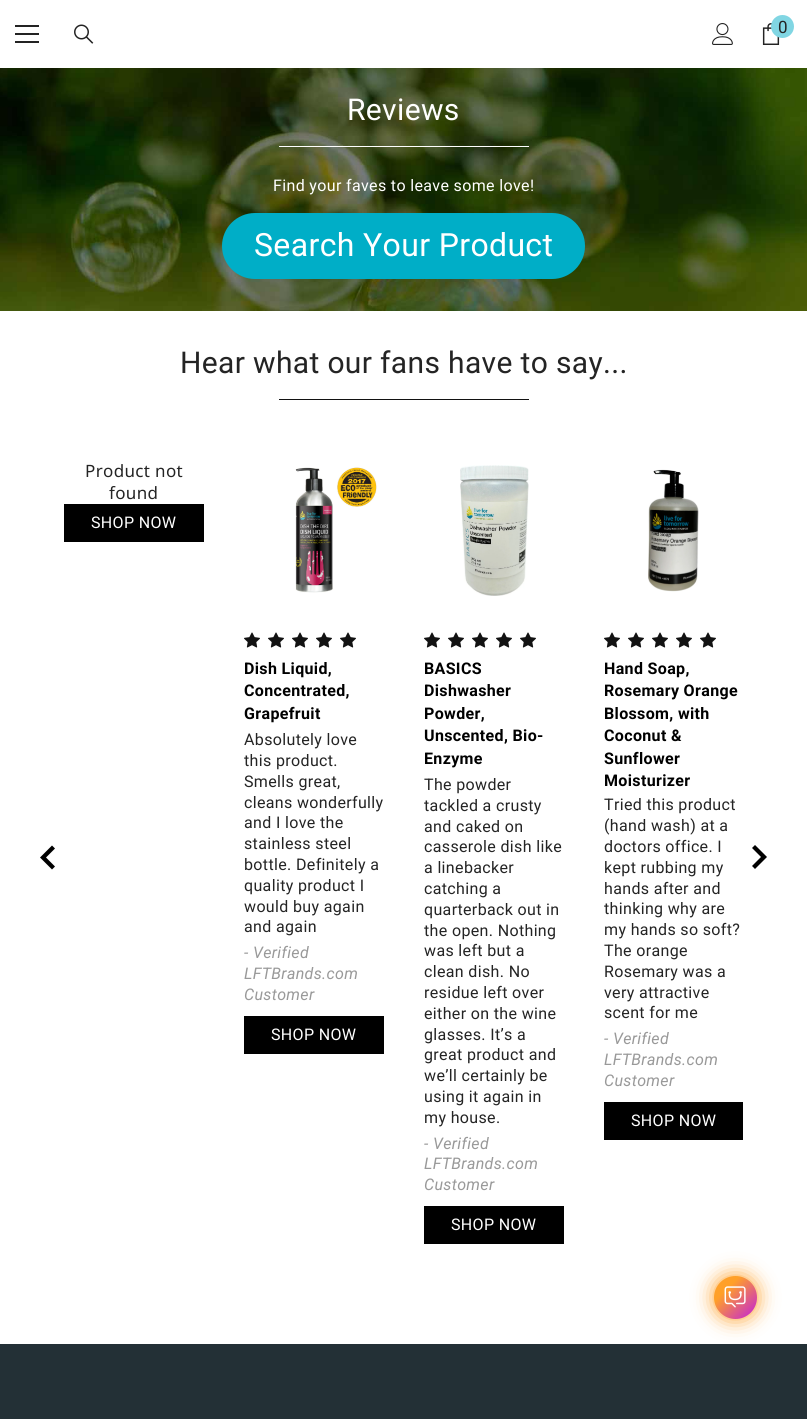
import math
import cairo


def write_spaced(ctx, x, y, s, letter, word):
	ctx.move_to(x, y)
	for ch in s:
		ctx.show_text(ch)
		ctx.rel_move_to(letter + word * (ch == ' '), 0)

def round_path(ctx, x, y, w, h, r):
	ctx.new_sub_path()
	for i, (u, v) in enumerate([(x + w - r, y + h - r), (x + r, y + h - r), (x + r, y + r), (x + w - r, y + r)]):
		ctx.arc(u, v, r, i * math.pi / 2, (i + 1) * math.pi / 2)
	ctx.close_path()

def blur_box(ctx, x, y, w, h, r, blur, alpha):
	ctx.push_group_with_content(cairo.CONTENT_ALPHA)
	ctx.set_operator(cairo.OPERATOR_SOURCE)
	for i in range(15, -16, -2):
		e = blur * i / 6
		if min(w, h) + 2 * e > 0:
			ctx.set_source_rgba(0, 0, 0, alpha * math.erfc((i - 1) / 8.5) / 2)
			round_path(ctx, x - e, y - e, w + 2 * e, h + 2 * e, max(0, min(r + e + blur * .6, min(w, h) / 2 + e)))
			ctx.fill()
	ctx.mask(ctx.pop_group())

def paste(ctx, path, x, y, w, h):
	ctx.save()
	ctx.set_source_surface(cairo.ImageSurface.create_from_png(path), x, y)
	ctx.rectangle(x, y, w, h)
	ctx.fill()
	ctx.restore()

def draw(ctx):
	ctx.set_source_rgb(1, 1, 1)
	ctx.paint()
	ctx.set_source_rgb(0.137, 0.137, 0.137)
	ctx.rectangle(15, 33, 24, 2)
	ctx.rectangle(15, 25, 24, 2)
	ctx.rectangle(15, 41, 24, 2)
	ctx.fill()
	paste(ctx, 'media/1.png', 74, 24, 20, 20)
	paste(ctx, 'media/2.png', 712, 23, 21, 22)
	paste(ctx, 'media/3.png', 762, 23, 18, 22)
	ctx.set_source_rgb(0.506, 0.839, 0.89)
	ctx.arc(782.5, 26.5, 11.5, 0, 2 * math.pi)
	ctx.fill()
	ctx.select_font_face('Roboto')
	ctx.set_font_size(17)
	ctx.set_source_rgb(0.141, 0.141, 0.141)
	ctx.move_to(778, 33)
	ctx.show_text('0')
	paste(ctx, 'media/4.png', 0, 68, 807, 243)
	ctx.set_font_size(30)
	ctx.set_source_rgb(1, 1, 1)
	write_spaced(ctx, 347, 120, 'Reviews', 0.35, 0)
	ctx.rectangle(279, 146, 250, 1)
	ctx.fill()
	ctx.set_font_size(16)
	write_spaced(ctx, 273, 191, 'Find your faves to leave some love!', 0.35, 0)
	ctx.set_source_rgb(0, 0.682, 0.78)
	round_path(ctx, 222, 213, 363, 66, 33)
	ctx.fill()
	ctx.set_font_size(32)
	ctx.set_source_rgb(1, 1, 1)
	write_spaced(ctx, 254, 256, 'Search Your Product', 0.35, 0)
	ctx.set_font_size(30)
	ctx.set_source_rgb(0.141, 0.141, 0.141)
	write_spaced(ctx, 180, 373, 'Hear what our fans have to say...', 0.35, 0)
	ctx.set_source_rgb(0.071, 0.071, 0.071)
	ctx.rectangle(279, 399, 250, 1)
	ctx.fill()
	ctx.set_source_rgb(0, 0, 0)
	ctx.new_path()
	ctx.move_to(55, 866.5)
	ctx.line_to(52, 869.5)
	ctx.line_to(40, 857.5)
	ctx.line_to(52, 845.5)
	ctx.line_to(55, 848.5)
	ctx.line_to(46, 857.5)
	ctx.close_path()
	ctx.fill()
	ctx.select_font_face('Noto Sans')
	ctx.set_font_size(17)
	ctx.set_source_rgb(0.141, 0.141, 0.141)
	write_spaced(ctx, 85, 477, 'Product not', 0.35, 0)
	write_spaced(ctx, 109, 499, 'found', 0.35, 0)
	ctx.set_source_rgb(0, 0, 0)
	ctx.rectangle(64, 504, 140, 38)
	ctx.fill()
	ctx.select_font_face('Roboto')
	ctx.set_font_size(16)
	ctx.set_source_rgb(1, 1, 1)
	write_spaced(ctx, 91, 528, 'SHOP NOW', 0.35, 0)
	paste(ctx, 'media/5.png', 295, 467, 82, 126)
	paste(ctx, 'media/6.png', 244, 632, 16, 16)
	paste(ctx, 'media/6.png', 268, 632, 16, 16)
	paste(ctx, 'media/6.png', 292, 632, 16, 16)
	paste(ctx, 'media/6.png', 316, 632, 16, 16)
	paste(ctx, 'media/6.png', 340, 632, 16, 16)
	ctx.select_font_face('Roboto', cairo.FONT_SLANT_NORMAL, cairo.FONT_WEIGHT_BOLD)
	ctx.set_source_rgb(0, 0, 0)
	for x, y, s in [
		(244, 674, 'Dish Liquid,'),
		(244, 696, 'Concentrated,'),
		(244, 719, 'Grapefruit'),
	]:
		write_spaced(ctx, x, y, s, 0.35, 0)
	ctx.select_font_face('Roboto')
	ctx.set_source_rgb(0.141, 0.141, 0.141)
	for x, y, s in [
		(244, 745, 'Absolutely love'),
		(244, 766, 'this product.'),
		(244, 787, 'Smells great,'),
		(244, 808, 'cleans wonderfully'),
		(244, 828, 'and I love the'),
		(244, 849, 'stainless steel'),
		(244, 870, 'bottle. Definitely a'),
		(244, 891, 'quality product I'),
		(244, 912, 'would buy again'),
		(244, 932, 'and again'),
	]:
		write_spaced(ctx, x, y, s, 0.35, 0)
	ctx.select_font_face('Roboto', cairo.FONT_SLANT_ITALIC)
	ctx.set_source_rgb(0.6, 0.6, 0.6)
	for x, y, s in [
		(244, 958, '- Verified'),
		(244, 979, 'LFTBrands.com'),
		(244, 1000, 'Customer'),
	]:
		write_spaced(ctx, x, y, s, 0.35, 0)
	ctx.set_source_rgb(0, 0, 0)
	ctx.rectangle(244, 1016, 140, 38)
	ctx.fill()
	ctx.select_font_face('Roboto')
	ctx.set_source_rgb(1, 1, 1)
	write_spaced(ctx, 271, 1040, 'SHOP NOW', 0.35, 0)
	paste(ctx, 'media/7.png', 460, 465, 69, 131)
	paste(ctx, 'media/6.png', 424, 632, 16, 16)
	paste(ctx, 'media/6.png', 448, 632, 16, 16)
	paste(ctx, 'media/6.png', 472, 632, 16, 16)
	paste(ctx, 'media/6.png', 496, 632, 16, 16)
	paste(ctx, 'media/6.png', 520, 632, 16, 16)
	ctx.select_font_face('Roboto', cairo.FONT_SLANT_NORMAL, cairo.FONT_WEIGHT_BOLD)
	ctx.set_source_rgb(0, 0, 0)
	for x, y, s in [
		(424, 674, 'BASICS'),
		(424, 696, 'Dishwasher'),
		(424, 719, 'Powder,'),
		(424, 741, 'Unscented, Bio-'),
		(424, 764, 'Enzyme'),
	]:
		write_spaced(ctx, x, y, s, 0.35, 0)
	ctx.select_font_face('Roboto')
	ctx.set_source_rgb(0.141, 0.141, 0.141)
	for x, y, s in [
		(424, 790, 'The powder'),
		(424, 811, 'tackled a crusty'),
		(424, 832, 'and caked on'),
		(424, 852, 'casserole dish like'),
		(424, 873, 'a linebacker'),
		(424, 894, 'catching a'),
		(424, 915, 'quarterback out in'),
		(424, 936, 'the open. Nothing'),
		(424, 956, 'was left but a'),
		(424, 977, 'clean dish. No'),
		(424, 998, 'residue left over'),
		(424, 1019, 'either on the wine'),
		(424, 1040, 'glasses. It’s a'),
		(424, 1060, 'great product and'),
		(424, 1081, 'we’ll certainly be'),
		(424, 1102, 'using it again in'),
		(424, 1123, 'my house.'),
	]:
		write_spaced(ctx, x, y, s, 0.35, 0)
	ctx.select_font_face('Roboto', cairo.FONT_SLANT_ITALIC)
	ctx.set_source_rgb(0.6, 0.6, 0.6)
	for x, y, s in [
		(424, 1149, '- Verified'),
		(424, 1169, 'LFTBrands.com'),
		(424, 1190, 'Customer'),
	]:
		write_spaced(ctx, x, y, s, 0.35, 0)
	ctx.set_source_rgb(0, 0, 0)
	ctx.rectangle(424, 1206, 140, 38)
	ctx.fill()
	ctx.select_font_face('Roboto')
	ctx.set_source_rgb(1, 1, 1)
	write_spaced(ctx, 451, 1230, 'SHOP NOW', 0.35, 0)
	paste(ctx, 'media/8.png', 648, 469, 51, 123)
	paste(ctx, 'media/6.png', 604, 632, 16, 16)
	paste(ctx, 'media/6.png', 628, 632, 16, 16)
	paste(ctx, 'media/6.png', 652, 632, 16, 16)
	paste(ctx, 'media/6.png', 676, 632, 16, 16)
	paste(ctx, 'media/6.png', 700, 632, 16, 16)
	ctx.select_font_face('Roboto', cairo.FONT_SLANT_NORMAL, cairo.FONT_WEIGHT_BOLD)
	ctx.set_source_rgb(0, 0, 0)
	for x, y, s in [
		(604, 674, 'Hand Soap,'),
		(604, 696, 'Rosemary Orange'),
		(604, 719, 'Blossom, with'),
		(604, 741, 'Coconut &'),
		(604, 764, 'Sunflower'),
		(604, 786, 'Moisturizer'),
	]:
		write_spaced(ctx, x, y, s, 0.35, 0)
	ctx.select_font_face('Roboto')
	ctx.set_source_rgb(0.141, 0.141, 0.141)
	for x, y, s in [
		(604, 810, 'Tried this product'),
		(604, 831, '(hand wash) at a'),
		(604, 852, 'doctors office. I'),
		(604, 873, 'kept rubbing my'),
		(604, 894, 'hands after and'),
		(604, 914, 'thinking why are'),
		(604, 935, 'my hands so soft?'),
		(604, 956, 'The orange'),
		(604, 977, 'Rosemary was a'),
		(604, 998, 'very attractive'),
		(604, 1018, 'scent for me'),
	]:
		write_spaced(ctx, x, y, s, 0.35, 0)
	ctx.select_font_face('Roboto', cairo.FONT_SLANT_ITALIC)
	ctx.set_source_rgb(0.6, 0.6, 0.6)
	for x, y, s in [
		(604, 1044, '- Verified'),
		(604, 1065, 'LFTBrands.com'),
		(604, 1086, 'Customer'),
	]:
		write_spaced(ctx, x, y, s, 0.35, 0)
	ctx.set_source_rgb(0, 0, 0)
	ctx.rectangle(604, 1102, 139, 38)
	ctx.fill()
	ctx.select_font_face('Roboto')
	ctx.set_source_rgb(1, 1, 1)
	write_spaced(ctx, 631, 1126, 'SHOP NOW', 0.35, 0)
	ctx.set_source_rgb(0, 0, 0)
	ctx.new_path()
	ctx.move_to(752, 848)
	ctx.line_to(755, 845)
	ctx.line_to(767, 857)
	ctx.line_to(755, 869)
	ctx.line_to(752, 866)
	ctx.line_to(761, 857)
	ctx.close_path()
	ctx.fill()
	ctx.set_source_rgb(0.137, 0.188, 0.212)
	ctx.rectangle(0, 1344, 807, 75)
	ctx.fill()
	ctx.set_source_rgb(1, 0.627, 0.157)
	blur_box(ctx, 714, 1276, 43, 43, 21.5, 10, 1)
	gradient = cairo.LinearGradient(714, 1276, 757, 1319)
	gradient.add_color_stop_rgba(0.3, 1, 0.627, 0.157, 1)
	gradient.add_color_stop_rgba(1, 0.761, 0.114, 0.875, 1)
	ctx.set_source(gradient)
	ctx.arc(735.5, 1297.5, 21.5, 0, 2 * math.pi)
	ctx.fill()
	paste(ctx, 'media/9.png', 724, 1286, 22, 22)


surface = cairo.ImageSurface(cairo.FORMAT_RGB24, 807, 1419)
ctx = cairo.Context(surface)
options = cairo.FontOptions()
options.set_hint_metrics(cairo.HINT_METRICS_OFF)
options.set_hint_style(cairo.HINT_STYLE_NONE)
ctx.set_font_options(options)
ctx.set_miter_limit(4)
draw(ctx)
surface.write_to_png('image.png')
